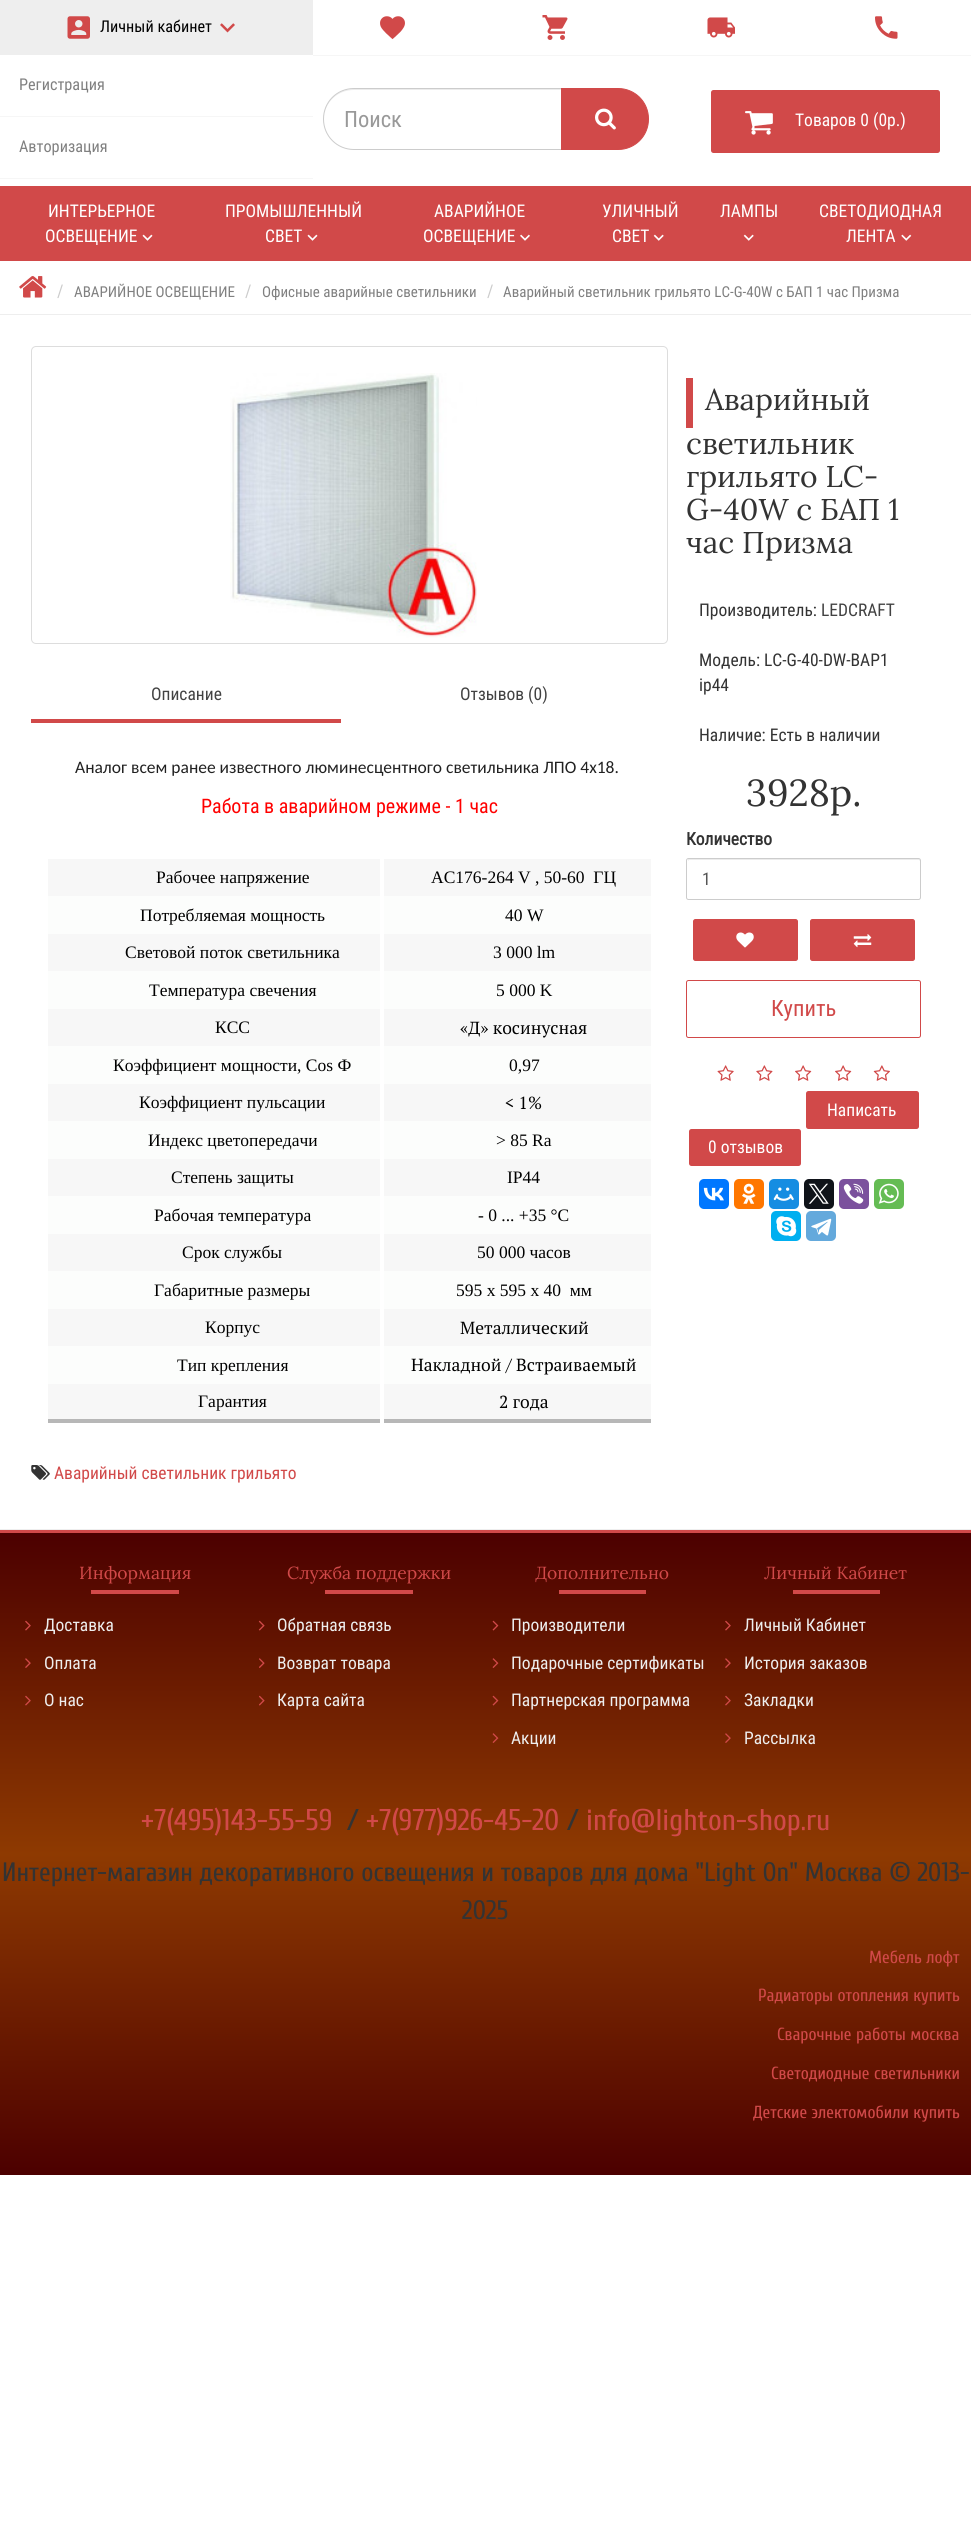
import math
import cairo


def round_path(ctx, x, y, w, h, r):
	ctx.new_sub_path()
	for i, (u, v) in enumerate([(x + w - r, y + h - r), (x + r, y + h - r), (x + r, y + r), (x + w - r, y + r)]):
		ctx.arc(u, v, r, i * math.pi / 2, (i + 1) * math.pi / 2)
	ctx.close_path()

def paste(ctx, path, x, y, w, h):
	ctx.save()
	ctx.set_source_surface(cairo.ImageSurface.create_from_png(path), x, y)
	ctx.rectangle(x, y, w, h)
	ctx.fill()
	ctx.restore()

def draw(ctx):
	ctx.set_source_rgb(1, 1, 1)
	ctx.paint()
	ctx.set_source_rgb(0.961, 0.961, 0.961)
	ctx.rectangle(313, 55, 658, 1)
	ctx.fill()
	ctx.set_source_rgb(0.933, 0.933, 0.933)
	ctx.rectangle(0, 0, 313, 55)
	ctx.fill()
	paste(ctx, 'media/1.png', 67, 16, 23, 23)
	ctx.select_font_face('Roboto Condensed')
	ctx.set_font_size(16.25)
	ctx.set_source_rgb(0, 0, 0)
	ctx.move_to(100, 32)
	ctx.show_text('Личный кабинет')
	paste(ctx, 'media/2.png', 220, 23, 15, 10)
	ctx.set_source_rgb(0.961, 0.961, 0.961)
	ctx.rectangle(0, 116, 313, 1)
	ctx.fill()
	ctx.set_source_rgb(0.502, 0.502, 0.502)
	ctx.move_to(19, 90)
	ctx.show_text('Регистрация')
	ctx.set_source_rgb(0.961, 0.961, 0.961)
	ctx.rectangle(0, 178, 313, 1)
	ctx.fill()
	ctx.set_source_rgb(0.502, 0.502, 0.502)
	ctx.move_to(19, 152)
	ctx.show_text('Авторизация')
	paste(ctx, 'media/3.png', 380, 16, 25, 24)
	paste(ctx, 'media/4.png', 542, 15, 26, 25)
	paste(ctx, 'media/5.png', 707, 17, 28, 21)
	paste(ctx, 'media/6.png', 875, 16, 23, 23)
	ctx.set_source_rgb(0.925, 0.925, 0.925)
	ctx.new_path()
	ctx.move_to(354, 90)
	ctx.line_to(561, 90)
	ctx.line_to(561, 89)
	ctx.line_to(354, 89)
	ctx.curve_to(337, 89, 324, 102, 324, 119)
	ctx.curve_to(324, 103, 337, 90, 354, 90)
	ctx.close_path()
	ctx.fill()
	ctx.new_path()
	ctx.move_to(354, 88.5)
	ctx.line_to(562.5, 88.5)
	ctx.line_to(562.5, 149.5)
	ctx.line_to(354, 149.5)
	ctx.curve_to(337, 149.5, 323.5, 136, 323.5, 119)
	ctx.curve_to(323.5, 102, 337, 88.5, 354, 88.5)
	ctx.close_path()
	ctx.set_source_rgb(0.8, 0.8, 0.8)
	ctx.set_line_width(1)
	ctx.stroke()
	ctx.set_font_size(22.5)
	ctx.set_source_rgb(0.6, 0.6, 0.6)
	ctx.move_to(344, 127)
	ctx.show_text('Поиск')
	ctx.set_source_rgb(0.82, 0.286, 0.286)
	ctx.new_path()
	ctx.move_to(561.5, 88.5)
	ctx.line_to(618, 88.5)
	ctx.curve_to(635, 88.5, 648.5, 102, 648.5, 119)
	ctx.curve_to(648.5, 136, 635, 149.5, 618, 149.5)
	ctx.line_to(561.5, 149.5)
	ctx.close_path()
	ctx.fill_preserve()
	ctx.stroke()
	paste(ctx, 'media/7.png', 595, 108, 21, 22)
	round_path(ctx, 711, 90, 229, 63, 2.5)
	ctx.fill()
	paste(ctx, 'media/8.png', 745, 111, 28, 24)
	ctx.set_font_size(17.5)
	ctx.set_source_rgb(1, 1, 1)
	ctx.move_to(795, 126)
	ctx.show_text('Товаров 0 (0р.)')
	ctx.set_source_rgb(0.82, 0.286, 0.286)
	ctx.rectangle(0, 186, 971, 75)
	ctx.fill()
	ctx.set_source_rgb(1, 1, 1)
	ctx.move_to(48, 217)
	ctx.show_text('ИНТЕРЬЕРНОЕ')
	ctx.move_to(45, 242)
	ctx.show_text('ОСВЕЩЕНИЕ')
	paste(ctx, 'media/9.png', 142, 234, 11, 7)
	ctx.move_to(225, 217)
	ctx.show_text('ПРОМЫШЛЕННЫЙ')
	ctx.move_to(265, 242)
	ctx.show_text('СВЕТ')
	paste(ctx, 'media/9.png', 307, 234, 11, 7)
	ctx.move_to(434, 217)
	ctx.show_text('АВАРИЙНОЕ')
	ctx.move_to(423, 242)
	ctx.show_text('ОСВЕЩЕНИЕ')
	paste(ctx, 'media/10.png', 520, 234, 10, 7)
	ctx.move_to(602, 217)
	ctx.show_text('УЛИЧНЫЙ')
	ctx.move_to(612, 242)
	ctx.show_text('СВЕТ')
	paste(ctx, 'media/11.png', 653, 234, 11, 7)
	ctx.move_to(720, 217)
	ctx.show_text('ЛАМПЫ')
	paste(ctx, 'media/11.png', 743, 234, 11, 7)
	ctx.move_to(819, 217)
	ctx.show_text('СВЕТОДИОДНАЯ')
	ctx.move_to(846, 242)
	ctx.show_text('ЛЕНТА')
	paste(ctx, 'media/12.png', 901, 234, 11, 7)
	paste(ctx, 'media/13.png', 19, 276, 28, 22)
	ctx.set_source_rgb(0.8, 0.8, 0.8)
	ctx.move_to(57, 297)
	ctx.show_text('/')
	ctx.set_font_size(15)
	ctx.set_source_rgb(0.502, 0.502, 0.502)
	ctx.move_to(74, 297)
	ctx.show_text('АВАРИЙНОЕ ОСВЕЩЕНИЕ')
	ctx.set_font_size(17.5)
	ctx.set_source_rgb(0.8, 0.8, 0.8)
	ctx.move_to(245, 297)
	ctx.show_text('/')
	ctx.set_font_size(15)
	ctx.set_source_rgb(0.502, 0.502, 0.502)
	ctx.move_to(262, 297)
	ctx.show_text('Офисные аварийные светильники')
	ctx.set_font_size(17.5)
	ctx.set_source_rgb(0.8, 0.8, 0.8)
	ctx.move_to(487, 297)
	ctx.show_text('/')
	ctx.set_font_size(15)
	ctx.set_source_rgb(0.502, 0.502, 0.502)
	ctx.move_to(503, 297)
	ctx.show_text('Аварийный светильник грильято LC-G-40W с БАП 1 час Призма')
	ctx.set_source_rgb(0.933, 0.933, 0.933)
	ctx.rectangle(0, 314, 971, 1)
	ctx.fill()
	ctx.rectangle(0, 1529, 971, 1)
	ctx.fill()
	round_path(ctx, 31.5, 346.5, 636, 297, 4.5)
	ctx.set_source_rgb(0.867, 0.867, 0.867)
	ctx.stroke()
	paste(ctx, 'media/14.png', 230, 373, 247, 265)
	ctx.set_source_rgb(0.82, 0.286, 0.286)
	ctx.rectangle(31, 719, 310, 4)
	ctx.fill()
	ctx.set_font_size(17.5)
	ctx.set_source_rgb(0.259, 0.259, 0.259)
	ctx.move_to(151, 700)
	ctx.show_text('Описание')
	ctx.move_to(460, 700)
	ctx.show_text('Отзывов (0)')
	ctx.select_font_face('Carlito')
	ctx.set_source_rgb(0.129, 0.129, 0.129)
	ctx.move_to(75, 773)
	ctx.show_text('Аналог всем ранее известного люминесцентного светильника ЛПО 4х18.')
	ctx.select_font_face('Roboto Condensed')
	ctx.set_font_size(20)
	ctx.set_source_rgb(1, 0, 0)
	ctx.move_to(201, 813)
	ctx.show_text('Работа в аварийном режиме - 1 час')
	ctx.set_source_rgb(0.718, 0.718, 0.718)
	ctx.rectangle(48, 1419, 603, 4)
	ctx.fill()
	ctx.set_source_rgb(0.965, 0.965, 0.965)
	ctx.rectangle(48, 859, 603, 37)
	ctx.fill()
	ctx.select_font_face('Liberation Serif')
	ctx.set_font_size(17.5)
	ctx.set_source_rgb(0, 0, 0)
	ctx.move_to(156, 883)
	ctx.show_text('Рабочее напряжение')
	ctx.move_to(431, 883)
	ctx.show_text('AC176-264 V , 50-60  ГЦ')
	ctx.set_source_rgb(0.988, 0.992, 0.988)
	ctx.rectangle(48, 896, 603, 38)
	ctx.fill()
	ctx.set_source_rgb(0, 0, 0)
	ctx.move_to(140, 921)
	ctx.show_text('Потребляемая мощность')
	ctx.move_to(505, 921)
	ctx.show_text('40 W')
	ctx.set_source_rgb(0.965, 0.965, 0.965)
	ctx.rectangle(48, 934, 603, 37)
	ctx.fill()
	ctx.set_source_rgb(0, 0, 0)
	ctx.move_to(125, 958)
	ctx.show_text('Световой поток светильника')
	ctx.move_to(493, 958)
	ctx.show_text('3 000 lm')
	ctx.set_source_rgb(0.988, 0.992, 0.988)
	ctx.rectangle(48, 971, 603, 38)
	ctx.fill()
	ctx.set_source_rgb(0, 0, 0)
	ctx.move_to(149, 996)
	ctx.show_text('Температура свечения')
	ctx.move_to(496, 996)
	ctx.show_text('5 000 K')
	ctx.set_source_rgb(0.965, 0.965, 0.965)
	ctx.rectangle(48, 1009, 603, 37)
	ctx.fill()
	ctx.set_source_rgb(0, 0, 0)
	ctx.move_to(215, 1033)
	ctx.show_text('КСС')
	ctx.select_font_face('PT Serif')
	ctx.move_to(460, 1034)
	ctx.show_text('«Д» косинусная')
	ctx.set_source_rgb(0.988, 0.992, 0.988)
	ctx.rectangle(48, 1046, 332, 38)
	ctx.fill()
	ctx.set_source_rgb(1, 1, 1)
	ctx.rectangle(380, 856, 4, 192)
	ctx.fill()
	ctx.select_font_face('Liberation Serif')
	ctx.set_source_rgb(0, 0, 0)
	ctx.move_to(113, 1071)
	ctx.show_text('Коэффициент мощности, Cos Ф')
	ctx.set_source_rgb(0.988, 0.992, 0.988)
	ctx.rectangle(384, 1046, 267, 38)
	ctx.fill()
	ctx.set_source_rgb(0, 0, 0)
	ctx.move_to(509, 1071)
	ctx.show_text('0,97')
	ctx.set_source_rgb(0.965, 0.965, 0.965)
	ctx.rectangle(48, 1084, 603, 37)
	ctx.fill()
	ctx.set_source_rgb(0, 0, 0)
	ctx.move_to(139, 1108)
	ctx.show_text('Коэффициент пульсации')
	ctx.select_font_face('PT Serif')
	ctx.move_to(505, 1109)
	ctx.show_text('< 1%')
	ctx.set_source_rgb(0.988, 0.992, 0.988)
	ctx.rectangle(48, 1121, 332, 38)
	ctx.fill()
	ctx.set_source_rgb(1, 1, 1)
	ctx.rectangle(380, 1081, 4, 42)
	ctx.fill()
	ctx.select_font_face('Liberation Serif')
	ctx.set_source_rgb(0, 0, 0)
	ctx.move_to(148, 1146)
	ctx.show_text('Индекс цветопередачи')
	ctx.set_source_rgb(0.988, 0.992, 0.988)
	ctx.rectangle(384, 1121, 267, 38)
	ctx.fill()
	ctx.set_source_rgb(0, 0, 0)
	ctx.move_to(496, 1146)
	ctx.show_text('> 85 Ra')
	ctx.set_source_rgb(0.965, 0.965, 0.965)
	ctx.rectangle(48, 1159, 603, 37)
	ctx.fill()
	ctx.set_source_rgb(0, 0, 0)
	ctx.move_to(171, 1183)
	ctx.show_text('Степень защиты')
	ctx.move_to(507, 1183)
	ctx.show_text('IP44')
	ctx.set_source_rgb(0.988, 0.992, 0.988)
	ctx.rectangle(48, 1196, 332, 38)
	ctx.fill()
	ctx.set_source_rgb(1, 1, 1)
	ctx.rectangle(380, 1156, 4, 42)
	ctx.fill()
	ctx.set_source_rgb(0, 0, 0)
	ctx.move_to(154, 1221)
	ctx.show_text('Рабочая температура')
	ctx.set_source_rgb(0.988, 0.992, 0.988)
	ctx.rectangle(384, 1196, 267, 38)
	ctx.fill()
	ctx.set_source_rgb(0, 0, 0)
	ctx.move_to(478, 1221)
	ctx.show_text('- 0 ... +35 °C')
	ctx.set_source_rgb(0.965, 0.965, 0.965)
	ctx.rectangle(48, 1234, 603, 37)
	ctx.fill()
	ctx.set_source_rgb(0, 0, 0)
	ctx.move_to(182, 1258)
	ctx.show_text('Срок службы')
	ctx.move_to(477, 1258)
	ctx.show_text('50 000 часов')
	ctx.set_source_rgb(0.988, 0.992, 0.988)
	ctx.rectangle(48, 1271, 332, 38)
	ctx.fill()
	ctx.set_source_rgb(1, 1, 1)
	ctx.rectangle(380, 1231, 4, 42)
	ctx.fill()
	ctx.set_source_rgb(0, 0, 0)
	ctx.move_to(154, 1296)
	ctx.show_text('Габаритные размеры')
	ctx.set_source_rgb(0.988, 0.992, 0.988)
	ctx.rectangle(384, 1271, 267, 38)
	ctx.fill()
	ctx.set_source_rgb(0, 0, 0)
	ctx.move_to(456, 1296)
	ctx.show_text('595 x 595 х 40  мм')
	ctx.set_source_rgb(0.965, 0.965, 0.965)
	ctx.rectangle(48, 1309, 603, 37)
	ctx.fill()
	ctx.set_source_rgb(0, 0, 0)
	ctx.move_to(205, 1333)
	ctx.show_text('Корпус')
	ctx.select_font_face('PT Serif')
	ctx.move_to(460, 1334)
	ctx.show_text('Металлический')
	ctx.set_source_rgb(0.988, 0.992, 0.988)
	ctx.rectangle(48, 1346, 603, 38)
	ctx.fill()
	ctx.select_font_face('Liberation Serif')
	ctx.set_source_rgb(0, 0, 0)
	ctx.move_to(177, 1371)
	ctx.show_text('Тип крепления')
	ctx.select_font_face('PT Serif')
	ctx.move_to(411, 1371)
	ctx.show_text('Накладной / Встраиваемый')
	ctx.set_source_rgb(0.965, 0.965, 0.965)
	ctx.rectangle(48, 1384, 332, 35)
	ctx.fill()
	ctx.set_source_rgb(1, 1, 1)
	ctx.rectangle(380, 1306, 4, 117)
	ctx.fill()
	ctx.select_font_face('Liberation Serif')
	ctx.set_source_rgb(0, 0, 0)
	ctx.move_to(198, 1407)
	ctx.show_text('Гарантия')
	ctx.set_source_rgb(0.965, 0.965, 0.965)
	ctx.rectangle(384, 1384, 267, 35)
	ctx.fill()
	ctx.select_font_face('PT Serif')
	ctx.set_source_rgb(0, 0, 0)
	ctx.move_to(499, 1408)
	ctx.show_text('2 года')
	ctx.set_source_rgb(0.82, 0.286, 0.286)
	ctx.rectangle(686, 378, 7, 50)
	ctx.fill()
	ctx.select_font_face('Lora')
	ctx.set_font_size(30)
	ctx.set_source_rgb(0.2, 0.2, 0.2)
	for x, y, s in [
		(705, 410, 'Аварийный'),
		(686, 454, 'светильник'),
		(686, 487, 'грильято LC-'),
		(686, 520, 'G-40W с БАП 1'),
		(686, 553, 'час Призма'),
	]:
		ctx.move_to(x, y)
		ctx.show_text(s)
	ctx.select_font_face('Roboto Condensed')
	ctx.set_font_size(17.5)
	ctx.move_to(699, 616)
	ctx.show_text('Производитель:')
	ctx.set_source_rgb(0.259, 0.259, 0.259)
	ctx.move_to(821, 616)
	ctx.show_text('LEDCRAFT')
	ctx.set_source_rgb(0.2, 0.2, 0.2)
	for x, y, s in [
		(699, 666, 'Модель: LC-G-40-DW-BAP1'),
		(699, 691, 'ip44'),
		(699, 741, 'Наличие: Есть в наличии'),
	]:
		ctx.move_to(x, y)
		ctx.show_text(s)
	ctx.select_font_face('Lora')
	ctx.set_font_size(37.5)
	ctx.move_to(746, 806)
	ctx.show_text('3928р.')
	ctx.select_font_face('Roboto Condensed', cairo.FONT_SLANT_NORMAL, cairo.FONT_WEIGHT_BOLD)
	ctx.set_font_size(17.5)
	ctx.move_to(686, 845)
	ctx.show_text('Количество')
	ctx.set_source_rgb(0.925, 0.925, 0.925)
	ctx.new_path()
	ctx.move_to(689, 860)
	ctx.line_to(919, 860)
	ctx.line_to(920, 861)
	ctx.curve_to(920, 860, 920, 859, 919, 859)
	ctx.line_to(688, 859)
	ctx.line_to(688, 861)
	ctx.close_path()
	ctx.fill()
	round_path(ctx, 686.5, 858.5, 234, 41, 2)
	ctx.set_source_rgb(0.8, 0.8, 0.8)
	ctx.stroke()
	ctx.select_font_face('Roboto Condensed')
	ctx.set_source_rgb(0.333, 0.333, 0.333)
	ctx.move_to(702, 885)
	ctx.show_text('1')
	ctx.set_source_rgb(0.82, 0.286, 0.286)
	round_path(ctx, 693.5, 919.5, 104, 41, 2)
	ctx.fill_preserve()
	ctx.stroke()
	paste(ctx, 'media/15.png', 736, 932, 18, 16)
	round_path(ctx, 810.5, 919.5, 104, 41, 2)
	ctx.fill_preserve()
	ctx.stroke()
	paste(ctx, 'media/16.png', 853, 934, 19, 14)
	round_path(ctx, 686.5, 980.5, 234, 57, 2)
	ctx.stroke()
	ctx.set_font_size(22.5)
	ctx.move_to(771, 1016)
	ctx.show_text('Купить')
	paste(ctx, 'media/17.png', 717, 1065, 17, 16)
	paste(ctx, 'media/18.png', 756, 1065, 17, 16)
	paste(ctx, 'media/19.png', 795, 1065, 17, 16)
	paste(ctx, 'media/19.png', 835, 1065, 17, 16)
	paste(ctx, 'media/20.png', 873, 1065, 17, 16)
	round_path(ctx, 806, 1091, 113, 38, 2.5)
	ctx.fill()
	ctx.set_font_size(17.5)
	ctx.set_source_rgb(1, 1, 1)
	ctx.move_to(827, 1116)
	ctx.show_text('Написать')
	ctx.set_source_rgb(0.82, 0.286, 0.286)
	round_path(ctx, 689, 1129, 112, 37, 2.5)
	ctx.fill()
	ctx.set_source_rgb(1, 1, 1)
	ctx.move_to(708, 1153)
	ctx.show_text('0 отзывов')
	ctx.set_source_rgb(0, 0.467, 1)
	round_path(ctx, 699, 1179, 30, 30, 5)
	ctx.fill()
	paste(ctx, 'media/21.png', 703, 1187, 21, 14)
	ctx.set_source_rgb(1, 0.467, 0)
	round_path(ctx, 734, 1179, 30, 30, 5)
	ctx.fill()
	paste(ctx, 'media/22.png', 742, 1183, 14, 21)
	ctx.set_source_rgb(0.086, 0.553, 0.886)
	round_path(ctx, 769, 1179, 30, 30, 5)
	ctx.fill()
	paste(ctx, 'media/23.png', 773, 1187, 21, 14)
	ctx.set_source_rgb(0.059, 0.078, 0.098)
	round_path(ctx, 804, 1179, 30, 30, 5)
	ctx.fill()
	paste(ctx, 'media/24.png', 808, 1183, 21, 21)
	ctx.set_source_rgb(0.482, 0.318, 0.616)
	round_path(ctx, 839, 1179, 30, 30, 5)
	ctx.fill()
	paste(ctx, 'media/25.png', 843, 1183, 21, 21)
	ctx.set_source_rgb(0.396, 0.737, 0.329)
	round_path(ctx, 874, 1179, 30, 30, 5)
	ctx.fill()
	paste(ctx, 'media/26.png', 878, 1183, 21, 21)
	ctx.set_source_rgb(0, 0.686, 0.941)
	round_path(ctx, 771, 1211, 30, 30, 5)
	ctx.fill()
	paste(ctx, 'media/27.png', 776, 1216, 21, 21)
	ctx.set_source_rgb(0.392, 0.663, 0.863)
	round_path(ctx, 806, 1211, 30, 30, 5)
	ctx.fill()
	paste(ctx, 'media/28.png', 811, 1218, 21, 18)
	paste(ctx, 'media/29.png', 31, 1465, 19, 15)
	ctx.set_source_rgb(0.82, 0.286, 0.286)
	ctx.move_to(54, 1479)
	ctx.show_text('Аварийный светильник грильято')
	gradient = cairo.LinearGradient(486, 1533, 486, 2175)
	gradient.add_color_stop_rgba(0, 0.298, 0, 0, 1)
	gradient.add_color_stop_rgba(0.5, 0.557, 0.227, 0.004, 1)
	gradient.add_color_stop_rgba(1, 0.298, 0, 0, 1)
	ctx.set_source(gradient)
	ctx.rectangle(0, 1533, 971, 642)
	ctx.fill()
	ctx.set_source_rgb(0.82, 0.286, 0.286)
	ctx.rectangle(0, 1530, 971, 3)
	ctx.fill()
	ctx.select_font_face('Lora')
	ctx.move_to(79, 1579)
	ctx.show_text('Информация')
	ctx.rectangle(91, 1590, 88, 4)
	ctx.fill()
	paste(ctx, 'media/30.png', 25, 1620, 6, 11)
	ctx.select_font_face('Roboto Condensed')
	ctx.set_source_rgb(0.933, 0.933, 0.933)
	ctx.move_to(44, 1631)
	ctx.show_text('Доставка')
	paste(ctx, 'media/31.png', 25, 1658, 6, 10)
	ctx.move_to(44, 1669)
	ctx.show_text('Оплата')
	paste(ctx, 'media/32.png', 25, 1695, 6, 11)
	ctx.move_to(44, 1706)
	ctx.show_text('О нас')
	ctx.select_font_face('Lora')
	ctx.set_source_rgb(0.82, 0.286, 0.286)
	ctx.move_to(287, 1579)
	ctx.show_text('Служба поддержки')
	ctx.rectangle(325, 1590, 88, 4)
	ctx.fill()
	paste(ctx, 'media/33.png', 258, 1620, 7, 11)
	ctx.select_font_face('Roboto Condensed')
	ctx.set_source_rgb(0.933, 0.933, 0.933)
	ctx.move_to(277, 1631)
	ctx.show_text('Обратная связь')
	paste(ctx, 'media/34.png', 259, 1658, 6, 10)
	ctx.move_to(277, 1669)
	ctx.show_text('Возврат товара')
	paste(ctx, 'media/35.png', 259, 1695, 6, 11)
	ctx.move_to(277, 1706)
	ctx.show_text('Карта сайта')
	ctx.select_font_face('Lora')
	ctx.set_source_rgb(0.82, 0.286, 0.286)
	ctx.move_to(535, 1579)
	ctx.show_text('Дополнительно')
	ctx.rectangle(559, 1590, 87, 4)
	ctx.fill()
	paste(ctx, 'media/36.png', 492, 1620, 7, 11)
	ctx.select_font_face('Roboto Condensed')
	ctx.set_source_rgb(0.933, 0.933, 0.933)
	ctx.move_to(511, 1631)
	ctx.show_text('Производители')
	paste(ctx, 'media/37.png', 492, 1658, 7, 10)
	ctx.move_to(511, 1669)
	ctx.show_text('Подарочные сертификаты')
	paste(ctx, 'media/38.png', 492, 1695, 7, 11)
	ctx.move_to(511, 1706)
	ctx.show_text('Партнерская программа')
	paste(ctx, 'media/39.png', 492, 1733, 7, 10)
	ctx.move_to(511, 1744)
	ctx.show_text('Акции')
	ctx.select_font_face('Lora')
	ctx.set_source_rgb(0.82, 0.286, 0.286)
	ctx.move_to(764, 1579)
	ctx.show_text('Личный Кабинет')
	ctx.rectangle(793, 1590, 87, 4)
	ctx.fill()
	paste(ctx, 'media/30.png', 725, 1620, 6, 11)
	ctx.select_font_face('Roboto Condensed')
	ctx.set_source_rgb(0.933, 0.933, 0.933)
	ctx.move_to(744, 1631)
	ctx.show_text('Личный Кабинет')
	paste(ctx, 'media/31.png', 725, 1658, 6, 10)
	ctx.move_to(744, 1669)
	ctx.show_text('История заказов')
	paste(ctx, 'media/32.png', 725, 1695, 6, 11)
	ctx.move_to(744, 1706)
	ctx.show_text('Закладки')
	paste(ctx, 'media/40.png', 725, 1733, 6, 10)
	ctx.move_to(744, 1744)
	ctx.show_text('Рассылка')
	ctx.select_font_face('Cuprum')
	ctx.set_font_size(30)
	ctx.set_source_rgb(0.82, 0.286, 0.286)
	ctx.move_to(141, 1830)
	ctx.show_text('+7(495)143-55-59')
	ctx.set_source_rgb(0.2, 0.2, 0.2)
	ctx.move_to(347, 1830)
	ctx.show_text('/')
	ctx.set_source_rgb(0.82, 0.286, 0.286)
	ctx.move_to(366, 1830)
	ctx.show_text('+7(977)926-45-20')
	ctx.set_source_rgb(0.2, 0.2, 0.2)
	ctx.move_to(567, 1830)
	ctx.show_text('/')
	ctx.set_source_rgb(0.82, 0.286, 0.286)
	ctx.move_to(586, 1830)
	ctx.show_text('info@lighton-shop.ru')
	ctx.set_font_size(26.65)
	ctx.set_source_rgb(0.2, 0.2, 0.2)
	ctx.move_to(2, 1881)
	ctx.show_text('Интернет-магазин декоративного освещения и товаров для дома "Light On" Москва © 2013-')
	ctx.move_to(462, 1919)
	ctx.show_text('2025')
	ctx.set_font_size(17.5)
	ctx.set_source_rgb(0.82, 0.286, 0.286)
	for x, y, s in [
		(869, 1963, 'Мебель лофт'),
		(758, 2001, 'Радиаторы отопления купить'),
		(777, 2040, 'Сварочные работы москва'),
		(771, 2079, 'Светодиодные светильники'),
		(753, 2118, 'Детские электомобили купить'),
	]:
		ctx.move_to(x, y)
		ctx.show_text(s)


surface = cairo.ImageSurface(cairo.FORMAT_RGB24, 971, 2536)
ctx = cairo.Context(surface)
options = cairo.FontOptions()
options.set_hint_metrics(cairo.HINT_METRICS_OFF)
options.set_hint_style(cairo.HINT_STYLE_NONE)
ctx.set_font_options(options)
ctx.set_miter_limit(4)
draw(ctx)
surface.write_to_png('image.png')
